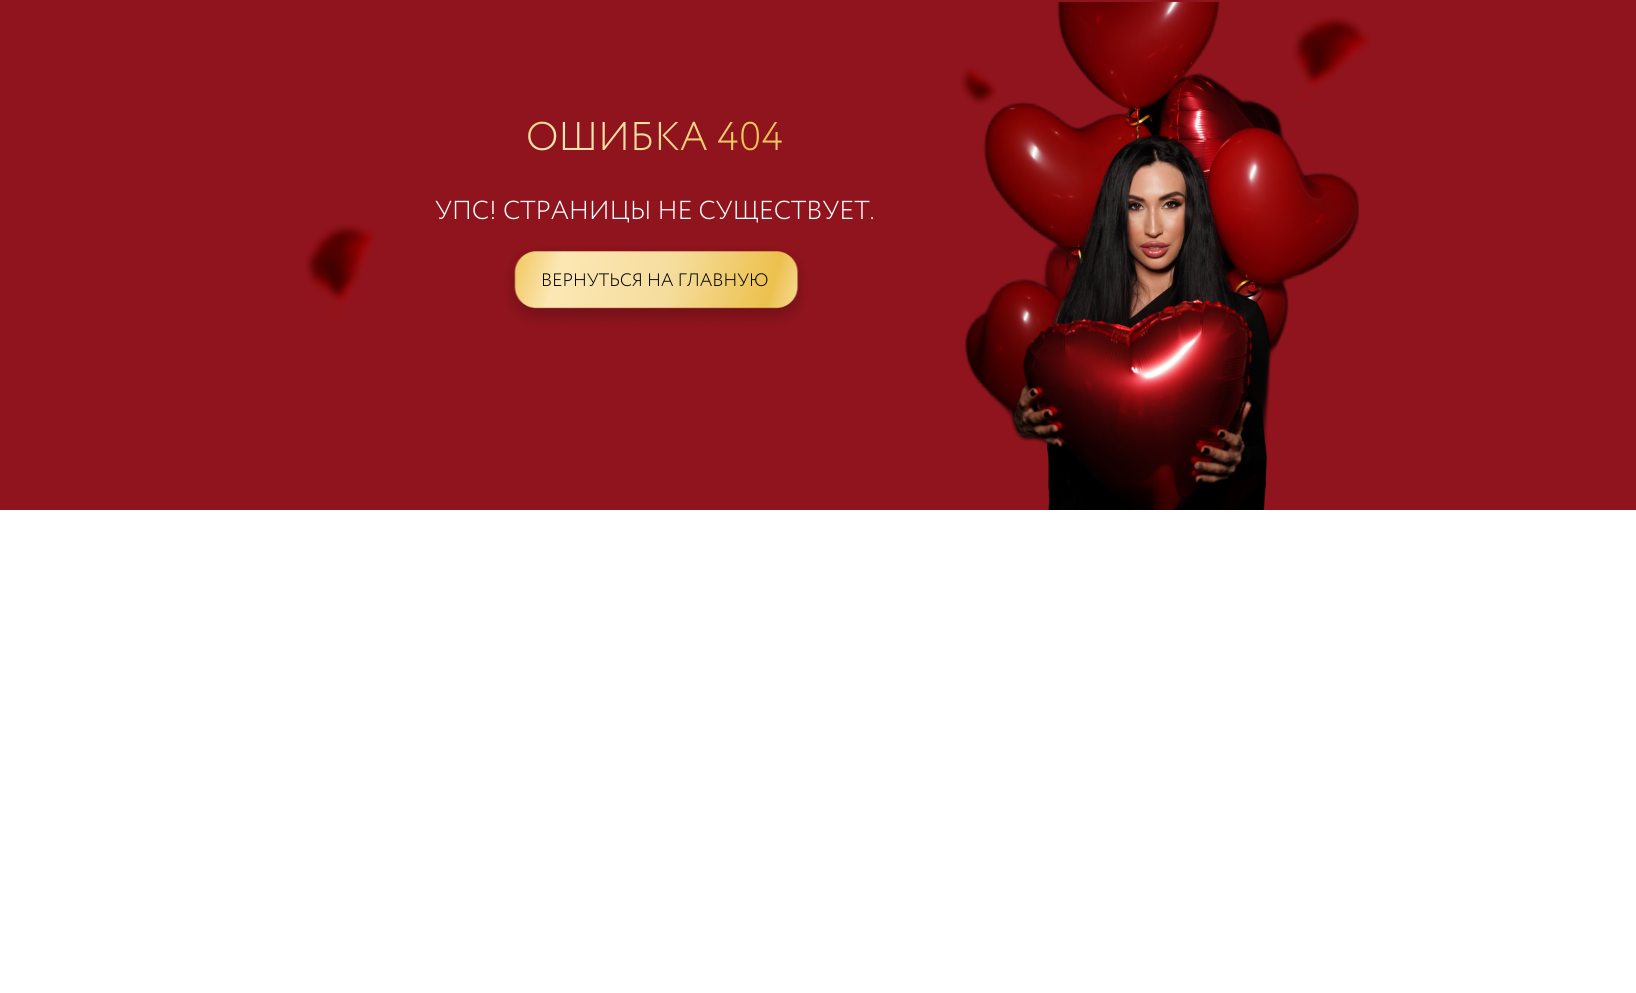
import math
import cairo


def paste(ctx, path, x, y, w, h):
	ctx.save()
	ctx.set_source_surface(cairo.ImageSurface.create_from_png(path), x, y)
	ctx.rectangle(x, y, w, h)
	ctx.fill()
	ctx.restore()

def draw(ctx):
	ctx.set_source_rgb(1, 1, 1)
	ctx.paint()
	ctx.set_source_rgb(0.565, 0.082, 0.114)
	ctx.rectangle(0, 0, 1636, 510)
	ctx.fill()
	paste(ctx, 'media/2.png', 960, 67, 37, 38)
	paste(ctx, 'media/3.png', 1292, 16, 78, 84)
	paste(ctx, 'media/1.png', 964, 1, 395, 509)
	paste(ctx, 'media/4.png', 528, 121, 254, 30)
	paste(ctx, 'media/5.png', 435, 200, 438, 23)
	paste(ctx, 'media/6.png', 305, 224, 69, 94)
	paste(ctx, 'media/7.png', 504, 247, 304, 79)
	paste(ctx, 'media/8.png', 543, 273, 225, 14)


surface = cairo.ImageSurface(cairo.FORMAT_RGB24, 1636, 993)
ctx = cairo.Context(surface)
options = cairo.FontOptions()
options.set_hint_metrics(cairo.HINT_METRICS_OFF)
options.set_hint_style(cairo.HINT_STYLE_NONE)
ctx.set_font_options(options)
ctx.set_miter_limit(4)
draw(ctx)
surface.write_to_png('image.png')
